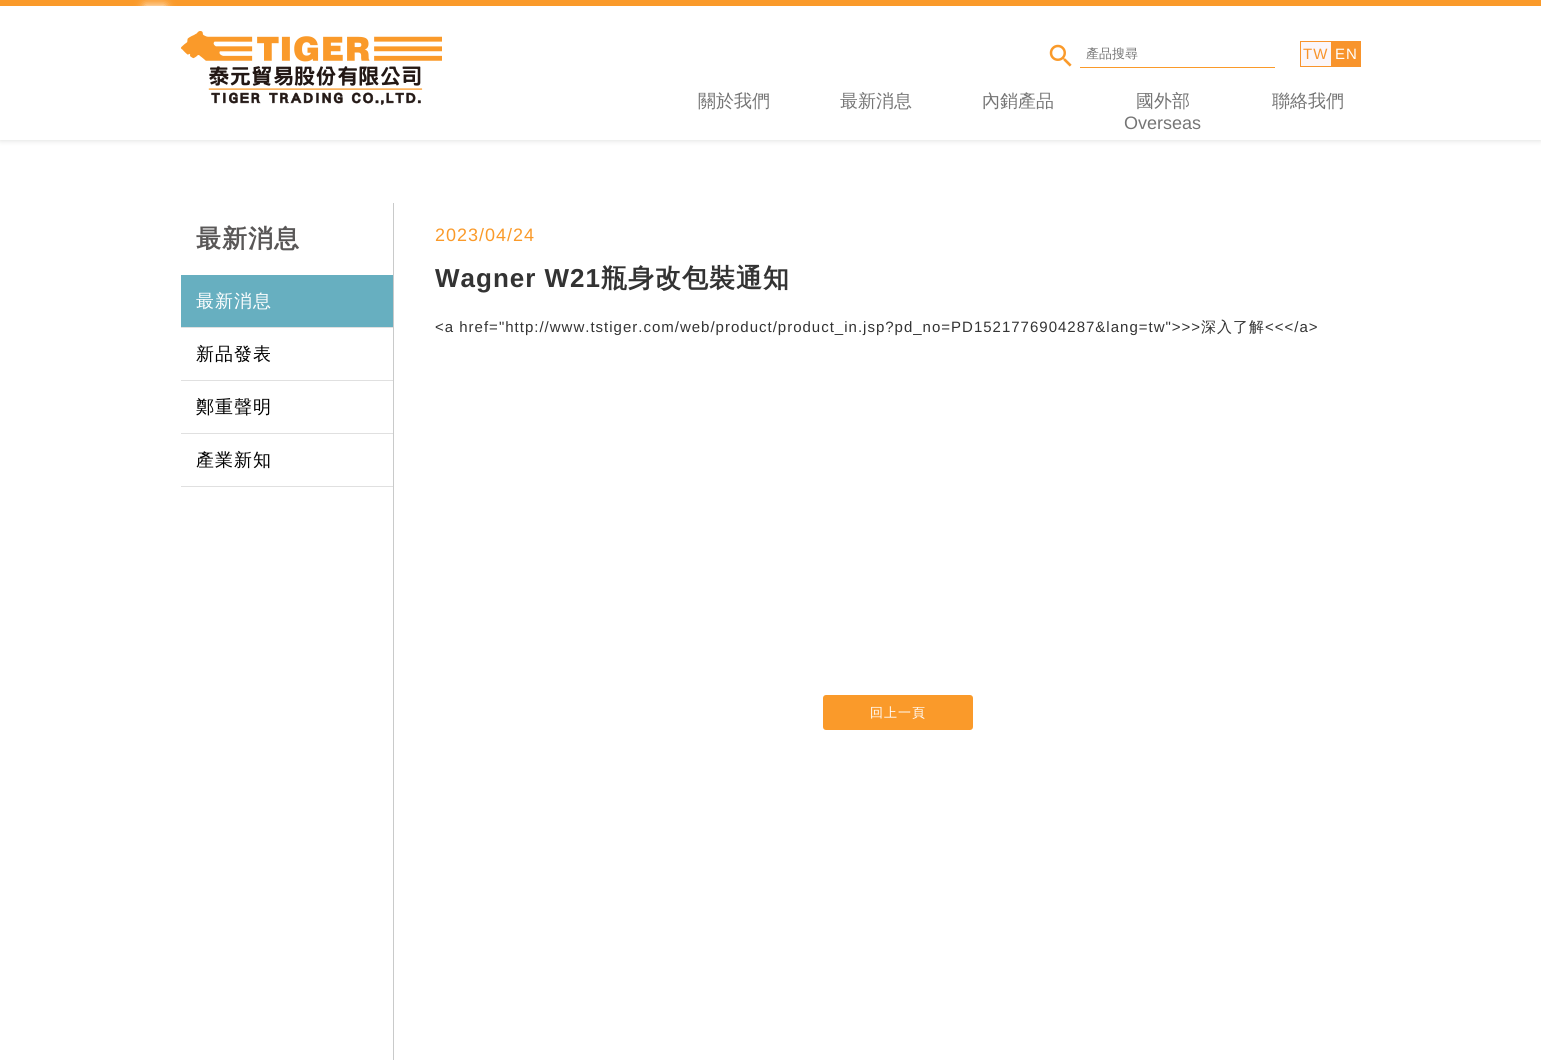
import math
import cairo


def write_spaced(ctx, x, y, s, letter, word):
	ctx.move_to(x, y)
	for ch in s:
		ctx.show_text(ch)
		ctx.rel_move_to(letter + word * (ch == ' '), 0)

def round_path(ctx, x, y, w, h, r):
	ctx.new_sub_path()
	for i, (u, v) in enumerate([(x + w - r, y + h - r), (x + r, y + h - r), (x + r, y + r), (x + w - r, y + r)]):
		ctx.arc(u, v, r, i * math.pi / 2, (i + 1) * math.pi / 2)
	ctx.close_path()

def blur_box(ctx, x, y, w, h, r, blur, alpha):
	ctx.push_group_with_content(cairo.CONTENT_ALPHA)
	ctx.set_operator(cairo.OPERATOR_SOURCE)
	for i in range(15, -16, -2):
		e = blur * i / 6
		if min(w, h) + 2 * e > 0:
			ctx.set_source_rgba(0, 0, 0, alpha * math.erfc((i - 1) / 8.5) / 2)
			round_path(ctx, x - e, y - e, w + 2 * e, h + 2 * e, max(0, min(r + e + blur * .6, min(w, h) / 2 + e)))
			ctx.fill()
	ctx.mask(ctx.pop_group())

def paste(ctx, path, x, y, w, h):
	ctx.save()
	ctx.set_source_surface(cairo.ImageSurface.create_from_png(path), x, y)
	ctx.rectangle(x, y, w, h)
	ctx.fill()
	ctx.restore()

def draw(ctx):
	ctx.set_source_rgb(1, 1, 1)
	ctx.paint()
	ctx.save()
	ctx.rectangle(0, 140, 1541, 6)
	ctx.clip()
	ctx.set_source_rgb(0.851, 0.855, 0.847)
	blur_box(ctx, 0, 0, 1541, 140, 0, 3, 1)
	ctx.restore()
	ctx.set_source_rgb(0.98, 0.604, 0.165)
	ctx.rectangle(0, 0, 1541, 6)
	ctx.fill()
	ctx.save()
	ctx.set_fill_rule(cairo.FILL_RULE_EVEN_ODD)
	ctx.new_path()
	ctx.move_to(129, 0)
	ctx.line_to(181, 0)
	ctx.line_to(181, 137)
	ctx.line_to(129, 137)
	ctx.close_path()
	ctx.move_to(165, 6)
	ctx.line_to(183.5, 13)
	ctx.line_to(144, 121)
	ctx.line_to(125.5, 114)
	ctx.close_path()
	ctx.clip()
	ctx.set_source_rgb(1, 1, 1)
	blur_box(ctx, 145, 6, 20, 115, 0, 5, 1)
	ctx.restore()
	paste(ctx, 'media/1.png', 181, 31, 261, 74)
	ctx.rectangle(1080, 67, 195, 1)
	ctx.fill()
	paste(ctx, 'media/2.png', 1049, 44, 23, 23)
	ctx.select_font_face('WenQuanYi Zen Hei Medium')
	ctx.set_font_size(13)
	ctx.set_source_rgb(0.459, 0.459, 0.459)
	ctx.move_to(1086, 58)
	ctx.show_text('產品搜尋')
	ctx.set_source_rgb(0.984, 0.961, 0.976)
	ctx.rectangle(1300.5, 41.5, 31, 25)
	ctx.fill_preserve()
	ctx.set_source_rgb(0.969, 0.58, 0.173)
	ctx.set_line_width(1)
	ctx.stroke()
	ctx.select_font_face('Liberation Sans')
	ctx.set_font_size(15)
	write_spaced(ctx, 1303, 59, 'TW', 1, 0)
	ctx.rectangle(1332, 41, 29, 26)
	ctx.fill()
	ctx.set_source_rgb(1, 1, 1)
	write_spaced(ctx, 1335, 59, 'EN', 1, 0)
	ctx.select_font_face('WenQuanYi Zen Hei Medium')
	ctx.set_font_size(18)
	ctx.set_source_rgb(0.459, 0.459, 0.459)
	for x, y, s in [
		(698, 107, '關於我們'),
		(840, 107, '最新消息'),
		(982, 107, '內銷產品'),
		(1136, 107, '國外部'),
	]:
		ctx.move_to(x, y)
		ctx.show_text(s)
	ctx.select_font_face('Liberation Sans')
	ctx.move_to(1124, 129)
	ctx.show_text('Overseas')
	ctx.select_font_face('WenQuanYi Zen Hei Medium')
	ctx.move_to(1272, 107)
	ctx.show_text('聯絡我們')
	ctx.set_source_rgb(0.788, 0.792, 0.792)
	ctx.rectangle(393, 203, 1, 857)
	ctx.fill()
	ctx.select_font_face('WenQuanYi Zen Hei', cairo.FONT_SLANT_NORMAL, cairo.FONT_WEIGHT_BOLD)
	ctx.set_font_size(25)
	ctx.set_source_rgb(0.349, 0.341, 0.341)
	write_spaced(ctx, 196, 247, '最新消息', 1, 0)
	ctx.set_source_rgb(0.404, 0.686, 0.753)
	ctx.rectangle(181, 275, 212, 52)
	ctx.fill()
	ctx.set_source_rgb(0.878, 0.878, 0.878)
	ctx.rectangle(181, 327, 212, 1)
	ctx.fill()
	ctx.select_font_face('WenQuanYi Zen Hei Medium')
	ctx.set_font_size(18)
	ctx.set_source_rgb(1, 1, 1)
	write_spaced(ctx, 196, 307, '最新消息', 1, 0)
	ctx.set_source_rgb(0.878, 0.878, 0.878)
	ctx.rectangle(181, 380, 212, 1)
	ctx.fill()
	ctx.set_source_rgb(0, 0, 0)
	write_spaced(ctx, 196, 360, '新品發表', 1, 0)
	ctx.set_source_rgb(0.878, 0.878, 0.878)
	ctx.rectangle(181, 433, 212, 1)
	ctx.fill()
	ctx.set_source_rgb(0, 0, 0)
	write_spaced(ctx, 196, 413, '鄭重聲明', 1, 0)
	ctx.set_source_rgb(0.878, 0.878, 0.878)
	ctx.rectangle(181, 486, 212, 1)
	ctx.fill()
	ctx.set_source_rgb(0, 0, 0)
	write_spaced(ctx, 196, 466, '產業新知', 1, 0)
	ctx.select_font_face('Liberation Sans')
	ctx.set_source_rgb(0.98, 0.604, 0.165)
	write_spaced(ctx, 435, 241, '2023/04/24', 1, 0)
	ctx.select_font_face('Liberation Sans', cairo.FONT_SLANT_NORMAL, cairo.FONT_WEIGHT_BOLD)
	ctx.set_font_size(26)
	ctx.set_source_rgb(0.2, 0.2, 0.2)
	write_spaced(ctx, 435, 287, 'Wagner W21', 1, 0)
	ctx.select_font_face('WenQuanYi Zen Hei', cairo.FONT_SLANT_NORMAL, cairo.FONT_WEIGHT_BOLD)
	write_spaced(ctx, 601, 287, '瓶身改包裝通知', 1, 0)
	ctx.select_font_face('Liberation Sans')
	ctx.set_font_size(15)
	write_spaced(ctx, 435, 332, '<a href="http://www.tstiger.com/web/product/product_in.jsp?pd_no=PD1521776904287&lang=tw">>>', 1, 0)
	ctx.select_font_face('WenQuanYi Zen Hei Medium')
	write_spaced(ctx, 1201, 332, '深入了解', 1, 0)
	ctx.select_font_face('Liberation Sans')
	write_spaced(ctx, 1265, 332, '<<</a>', 1, 0)
	ctx.set_source_rgb(0.98, 0.604, 0.165)
	round_path(ctx, 823, 695, 150, 35, 3)
	ctx.fill()
	ctx.select_font_face('WenQuanYi Zen Hei Medium')
	ctx.set_font_size(13)
	ctx.set_source_rgb(1, 1, 1)
	write_spaced(ctx, 870, 717, '回上一頁', 1, 0)


surface = cairo.ImageSurface(cairo.FORMAT_RGB24, 1541, 1060)
ctx = cairo.Context(surface)
options = cairo.FontOptions()
options.set_hint_metrics(cairo.HINT_METRICS_OFF)
options.set_hint_style(cairo.HINT_STYLE_NONE)
ctx.set_font_options(options)
ctx.set_miter_limit(4)
draw(ctx)
surface.write_to_png('image.png')
